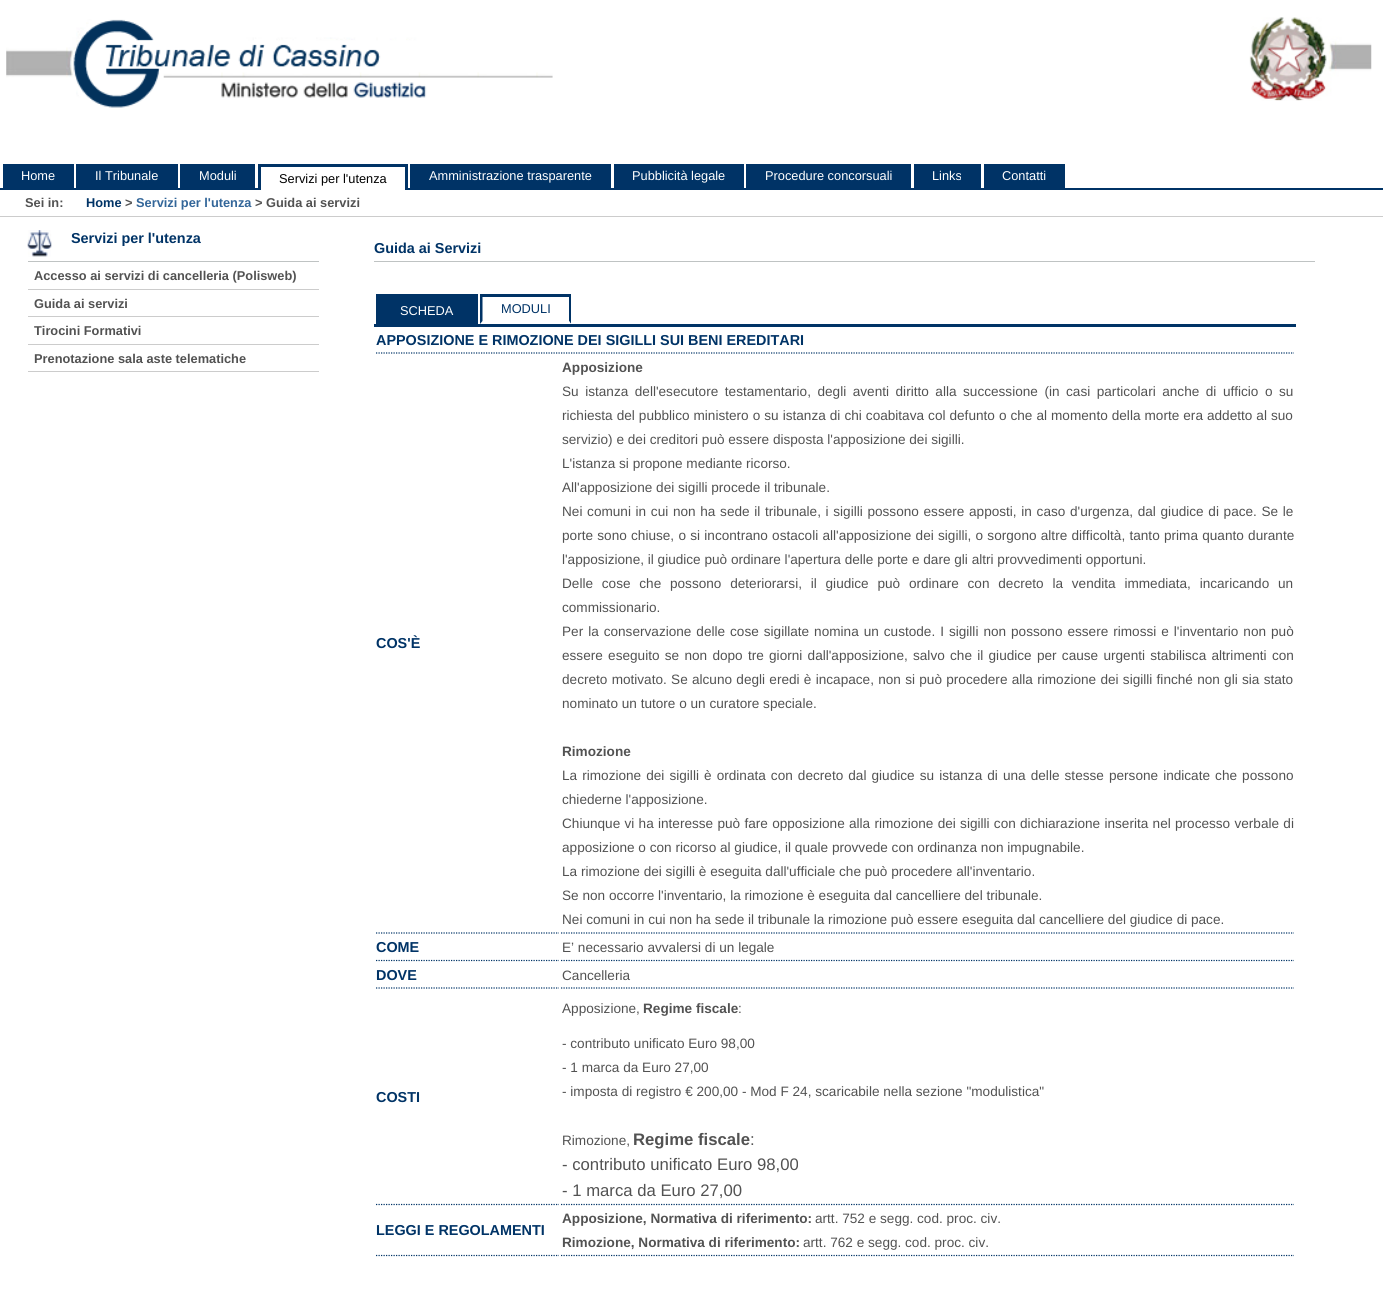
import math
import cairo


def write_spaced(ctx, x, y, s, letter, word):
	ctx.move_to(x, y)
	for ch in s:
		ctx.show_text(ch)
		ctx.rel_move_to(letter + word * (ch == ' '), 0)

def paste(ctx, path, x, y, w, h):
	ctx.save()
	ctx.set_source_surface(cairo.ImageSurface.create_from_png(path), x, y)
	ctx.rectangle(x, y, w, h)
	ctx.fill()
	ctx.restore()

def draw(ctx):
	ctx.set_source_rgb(1, 1, 1)
	ctx.paint()
	ctx.set_source_rgb(0, 0.2, 0.4)
	ctx.rectangle(0, 188, 1383, 2)
	ctx.fill()
	paste(ctx, 'media/1.png', 6, 19, 547, 89)
	paste(ctx, 'media/2.png', 1249, 17, 123, 84)
	ctx.rectangle(3, 164, 71, 24)
	ctx.fill()
	ctx.select_font_face('Liberation Sans')
	ctx.set_font_size(12.8)
	ctx.set_source_rgb(1, 1, 1)
	ctx.move_to(21, 180)
	ctx.show_text('Home')
	ctx.set_source_rgb(0, 0.2, 0.4)
	ctx.rectangle(76, 164, 102, 24)
	ctx.fill()
	ctx.set_source_rgb(1, 1, 1)
	ctx.move_to(95, 180)
	ctx.show_text('Il Tribunale')
	ctx.set_source_rgb(0, 0.2, 0.4)
	ctx.rectangle(180, 164, 75, 24)
	ctx.fill()
	ctx.set_source_rgb(1, 1, 1)
	ctx.move_to(199, 180)
	ctx.show_text('Moduli')
	ctx.rectangle(261, 188, 144, 2)
	ctx.fill()
	ctx.set_source_rgb(0, 0.2, 0.4)
	ctx.rectangle(258, 164, 150, 3)
	ctx.rectangle(405, 164, 3, 26)
	ctx.rectangle(258, 164, 3, 26)
	ctx.fill()
	ctx.set_source_rgb(0, 0, 0)
	ctx.move_to(279, 183)
	ctx.show_text('Servizi per l\'utenza')
	ctx.set_source_rgb(0, 0.2, 0.4)
	ctx.rectangle(410, 164, 201, 24)
	ctx.fill()
	ctx.set_source_rgb(1, 1, 1)
	ctx.move_to(429, 180)
	ctx.show_text('Amministrazione trasparente')
	ctx.set_source_rgb(0, 0.2, 0.4)
	ctx.rectangle(614, 164, 130, 24)
	ctx.fill()
	ctx.set_source_rgb(1, 1, 1)
	ctx.move_to(632, 180)
	ctx.show_text('Pubblicità legale')
	ctx.set_source_rgb(0, 0.2, 0.4)
	ctx.rectangle(746, 164, 165, 24)
	ctx.fill()
	ctx.set_source_rgb(1, 1, 1)
	ctx.move_to(765, 180)
	ctx.show_text('Procedure concorsuali')
	ctx.set_source_rgb(0, 0.2, 0.4)
	ctx.rectangle(914, 164, 67, 24)
	ctx.fill()
	ctx.set_source_rgb(1, 1, 1)
	ctx.move_to(932, 180)
	ctx.show_text('Links')
	ctx.set_source_rgb(0, 0.2, 0.4)
	ctx.rectangle(984, 164, 81, 24)
	ctx.fill()
	ctx.set_source_rgb(1, 1, 1)
	ctx.move_to(1002, 180)
	ctx.show_text('Contatti')
	ctx.set_source_rgb(0.8, 0.8, 0.8)
	ctx.rectangle(0, 216, 1383, 1)
	ctx.fill()
	ctx.select_font_face('Liberation Sans', cairo.FONT_SLANT_NORMAL, cairo.FONT_WEIGHT_BOLD)
	ctx.set_source_rgb(0.322, 0.322, 0.322)
	ctx.move_to(25, 207)
	ctx.show_text('Sei in:')
	ctx.set_source_rgb(0, 0.2, 0.4)
	ctx.move_to(86, 207)
	ctx.show_text('Home')
	ctx.set_source_rgb(0.322, 0.322, 0.322)
	ctx.move_to(125, 207)
	ctx.show_text('>')
	ctx.set_source_rgb(0.2, 0.4, 0.6)
	ctx.move_to(136, 207)
	ctx.show_text('Servizi per l\'utenza')
	ctx.set_source_rgb(0.322, 0.322, 0.322)
	ctx.move_to(255, 207)
	ctx.show_text('> Guida ai servizi')
	paste(ctx, 'media/3.png', 27, 230, 25, 27)
	ctx.set_source_rgb(0.749, 0.765, 0.765)
	ctx.rectangle(28, 261, 291, 1)
	ctx.fill()
	ctx.set_font_size(14.4)
	ctx.set_source_rgb(0, 0.2, 0.4)
	ctx.move_to(71, 243)
	ctx.show_text('Servizi per l\'utenza')
	ctx.set_source_rgb(0.8, 0.8, 0.8)
	ctx.rectangle(28, 289, 291, 1)
	ctx.fill()
	ctx.set_font_size(12.8)
	ctx.set_source_rgb(0.322, 0.322, 0.322)
	ctx.move_to(34, 280)
	ctx.show_text('Accesso ai servizi di cancelleria (Polisweb)')
	ctx.set_source_rgb(0.8, 0.8, 0.8)
	ctx.rectangle(28, 316, 291, 1)
	ctx.fill()
	ctx.set_source_rgb(0.322, 0.322, 0.322)
	ctx.move_to(34, 308)
	ctx.show_text('Guida ai servizi')
	ctx.set_source_rgb(0.8, 0.8, 0.8)
	ctx.rectangle(28, 344, 291, 1)
	ctx.fill()
	ctx.set_source_rgb(0.322, 0.322, 0.322)
	ctx.move_to(34, 335)
	ctx.show_text('Tirocini Formativi')
	ctx.set_source_rgb(0.8, 0.8, 0.8)
	ctx.rectangle(28, 371, 291, 1)
	ctx.fill()
	ctx.set_source_rgb(0.322, 0.322, 0.322)
	ctx.move_to(34, 363)
	ctx.show_text('Prenotazione sala aste telematiche')
	ctx.set_source_rgb(0.749, 0.765, 0.765)
	ctx.rectangle(374, 261, 941, 1)
	ctx.fill()
	ctx.set_font_size(14.4)
	ctx.set_source_rgb(0, 0.2, 0.4)
	ctx.move_to(374, 253)
	ctx.show_text('Guida ai Servizi')
	ctx.rectangle(374, 324, 922, 3)
	ctx.fill()
	ctx.rectangle(376, 294, 102, 30)
	ctx.fill()
	ctx.select_font_face('Liberation Sans')
	ctx.set_font_size(12.8)
	ctx.set_source_rgb(1, 1, 1)
	ctx.move_to(400, 315)
	ctx.show_text('SCHEDA')
	ctx.set_source_rgb(0, 0.2, 0.4)
	ctx.rectangle(480, 294, 91, 3)
	ctx.fill()
	ctx.new_path()
	ctx.move_to(571, 294)
	ctx.line_to(571, 324)
	ctx.line_to(569, 321)
	ctx.line_to(569, 296)
	ctx.close_path()
	ctx.fill()
	ctx.set_source_rgb(1, 1, 1)
	ctx.new_path()
	ctx.move_to(571, 324)
	ctx.line_to(480, 324)
	ctx.line_to(482, 321)
	ctx.line_to(569, 321)
	ctx.close_path()
	ctx.fill()
	ctx.set_source_rgb(0, 0.2, 0.4)
	ctx.new_path()
	ctx.move_to(480, 324)
	ctx.line_to(480, 294)
	ctx.line_to(482.5, 296)
	ctx.line_to(482.5, 321)
	ctx.close_path()
	ctx.fill()
	ctx.move_to(501, 313)
	ctx.show_text('MODULI')
	ctx.new_path()
	ctx.move_to(376, 353)
	ctx.line_to(1294, 353)
	ctx.set_line_width(1.2)
	ctx.set_dash([1.25, 1.25])
	ctx.stroke()
	ctx.select_font_face('Liberation Sans', cairo.FONT_SLANT_NORMAL, cairo.FONT_WEIGHT_BOLD)
	ctx.set_font_size(14.4)
	ctx.move_to(376, 345)
	ctx.show_text('APPOSIZIONE E RIMOZIONE DEI SIGILLI SUI BENI EREDITARI')
	ctx.new_path()
	ctx.move_to(376, 933)
	ctx.line_to(559, 933)
	ctx.stroke()
	ctx.move_to(376, 648)
	ctx.show_text('COS\'È')
	ctx.new_path()
	ctx.move_to(561, 933)
	ctx.line_to(1294, 933)
	ctx.stroke()
	ctx.set_font_size(13.6)
	ctx.set_source_rgb(0.322, 0.322, 0.322)
	ctx.move_to(562, 372)
	ctx.show_text('Apposizione')
	ctx.select_font_face('Liberation Sans')
	write_spaced(ctx, 562, 396, 'Su istanza dell\'esecutore testamentario, degli aventi diritto alla successione (in casi particolari anche di ufficio o su', 0, 2.75)
	write_spaced(ctx, 562, 420, 'richiesta del pubblico ministero o su istanza di chi coabitava col defunto o che al momento della morte era addetto al suo', 0, 0.25)
	for x, y, s in [
		(562, 444, 'servizio) e dei creditori può essere disposta l\'apposizione dei sigilli.'),
		(562, 468, 'L\'istanza si propone mediante ricorso.'),
		(562, 492, 'All\'apposizione dei sigilli procede il tribunale.'),
	]:
		ctx.move_to(x, y)
		ctx.show_text(s)
	write_spaced(ctx, 562, 516, 'Nei comuni in cui non ha sede il tribunale, i sigilli possono essere apposti, in caso d\'urgenza, dal giudice di pace. Se le', 0, 0.9)
	write_spaced(ctx, 562, 540, 'porte sono chiuse, o si incontrano ostacoli all\'apposizione dei sigilli, o sorgono altre difficoltà, tanto prima quanto durante', 0, 0.5)
	ctx.move_to(562, 564)
	ctx.show_text('l\'apposizione, il giudice può ordinare l\'apertura delle porte e dare gli altri provvedimenti opportuni.')
	write_spaced(ctx, 562, 588, 'Delle cose che possono deteriorarsi, il giudice può ordinare con decreto la vendita immediata, incaricando un', 0, 5)
	ctx.move_to(562, 612)
	ctx.show_text('commissionario.')
	write_spaced(ctx, 562, 636, 'Per la conservazione delle cose sigillate nomina un custode. I sigilli non possono essere rimossi e l\'inventario non può', 0, 1.2)
	write_spaced(ctx, 562, 660, 'essere eseguito se non dopo tre giorni dall\'apposizione, salvo che il giudice per cause urgenti stabilisca altrimenti con', 0, 1.5)
	write_spaced(ctx, 562, 684, 'decreto motivato. Se alcuno degli eredi è incapace, non si può procedere alla rimozione dei sigilli finché non gli sia stato', 0, 0.5)
	ctx.move_to(562, 708)
	ctx.show_text('nominato un tutore o un curatore speciale.')
	ctx.select_font_face('Liberation Sans', cairo.FONT_SLANT_NORMAL, cairo.FONT_WEIGHT_BOLD)
	ctx.move_to(562, 756)
	ctx.show_text('Rimozione')
	ctx.select_font_face('Liberation Sans')
	write_spaced(ctx, 562, 780, 'La rimozione dei sigilli è ordinata con decreto dal giudice su istanza di una delle stesse persone indicate che possono', 0, 1.3)
	ctx.move_to(562, 804)
	ctx.show_text('chiederne l\'apposizione.')
	write_spaced(ctx, 562, 828, 'Chiunque vi ha interesse può fare opposizione alla rimozione dei sigilli con dichiarazione inserita nel processo verbale di', 0, 0.5)
	for x, y, s in [
		(562, 852, 'apposizione o con ricorso al giudice, il quale provvede con ordinanza non impugnabile.'),
		(562, 876, 'La rimozione dei sigilli è eseguita dall\'ufficiale che può procedere all\'inventario.'),
		(562, 900, 'Se non occorre l\'inventario, la rimozione è eseguita dal cancelliere del tribunale.'),
		(562, 924, 'Nei comuni in cui non ha sede il tribunale la rimozione può essere eseguita dal cancelliere del giudice di pace.'),
	]:
		ctx.move_to(x, y)
		ctx.show_text(s)
	ctx.new_path()
	ctx.move_to(376, 960.5)
	ctx.line_to(559, 960.5)
	ctx.set_source_rgb(0, 0.2, 0.4)
	ctx.stroke()
	ctx.select_font_face('Liberation Sans', cairo.FONT_SLANT_NORMAL, cairo.FONT_WEIGHT_BOLD)
	ctx.set_font_size(14.4)
	ctx.move_to(376, 952)
	ctx.show_text('COME')
	ctx.new_path()
	ctx.move_to(561, 960.5)
	ctx.line_to(1294, 960.5)
	ctx.stroke()
	ctx.select_font_face('Liberation Sans')
	ctx.set_font_size(13.6)
	ctx.set_source_rgb(0.322, 0.322, 0.322)
	ctx.move_to(562, 952)
	ctx.show_text('E’ necessario avvalersi di un legale')
	ctx.new_path()
	ctx.move_to(376, 988)
	ctx.line_to(559, 988)
	ctx.set_source_rgb(0, 0.2, 0.4)
	ctx.stroke()
	ctx.select_font_face('Liberation Sans', cairo.FONT_SLANT_NORMAL, cairo.FONT_WEIGHT_BOLD)
	ctx.set_font_size(14.4)
	ctx.move_to(376, 980)
	ctx.show_text('DOVE')
	ctx.new_path()
	ctx.move_to(561, 988)
	ctx.line_to(1294, 988)
	ctx.stroke()
	ctx.select_font_face('Liberation Sans')
	ctx.set_font_size(13.6)
	ctx.set_source_rgb(0.322, 0.322, 0.322)
	ctx.move_to(562, 980)
	ctx.show_text('Cancelleria')
	ctx.new_path()
	ctx.move_to(376, 1204.5)
	ctx.line_to(559, 1204.5)
	ctx.set_source_rgb(0, 0.2, 0.4)
	ctx.stroke()
	ctx.select_font_face('Liberation Sans', cairo.FONT_SLANT_NORMAL, cairo.FONT_WEIGHT_BOLD)
	ctx.set_font_size(14.4)
	ctx.move_to(376, 1102)
	ctx.show_text('COSTI')
	ctx.new_path()
	ctx.move_to(561, 1204.5)
	ctx.line_to(1294, 1204.5)
	ctx.stroke()
	ctx.select_font_face('Liberation Sans')
	ctx.set_font_size(13.6)
	ctx.set_source_rgb(0.322, 0.322, 0.322)
	ctx.move_to(562, 1013)
	ctx.show_text('Apposizione,')
	ctx.select_font_face('Liberation Sans', cairo.FONT_SLANT_NORMAL, cairo.FONT_WEIGHT_BOLD)
	ctx.move_to(643, 1013)
	ctx.show_text('Regime fiscale')
	ctx.select_font_face('Liberation Sans')
	for x, y, s in [
		(738, 1013, ':'),
		(562, 1048, '- contributo unificato Euro 98,00'),
		(562, 1072, '- 1 marca da Euro 27,00'),
		(562, 1096, '- imposta di registro € 200,00 - Mod F 24, scaricabile nella sezione "modulistica"'),
		(562, 1145, 'Rimozione,'),
	]:
		ctx.move_to(x, y)
		ctx.show_text(s)
	ctx.select_font_face('Liberation Sans', cairo.FONT_SLANT_NORMAL, cairo.FONT_WEIGHT_BOLD)
	ctx.set_font_size(16.7)
	ctx.move_to(633, 1145)
	ctx.show_text('Regime fiscale')
	ctx.select_font_face('Liberation Sans')
	for x, y, s in [
		(750, 1145, ':'),
		(562, 1170, '- contributo unificato Euro 98,00'),
		(562, 1196, '- 1 marca da Euro 27,00'),
	]:
		ctx.move_to(x, y)
		ctx.show_text(s)
	ctx.new_path()
	ctx.move_to(376, 1255.5)
	ctx.line_to(559, 1255.5)
	ctx.set_source_rgb(0, 0.2, 0.4)
	ctx.stroke()
	ctx.select_font_face('Liberation Sans', cairo.FONT_SLANT_NORMAL, cairo.FONT_WEIGHT_BOLD)
	ctx.set_font_size(14.4)
	ctx.move_to(376, 1235)
	ctx.show_text('LEGGI E REGOLAMENTI')
	ctx.new_path()
	ctx.move_to(561, 1255.5)
	ctx.line_to(1294, 1255.5)
	ctx.stroke()
	ctx.set_font_size(13.6)
	ctx.set_source_rgb(0.322, 0.322, 0.322)
	ctx.move_to(562, 1223)
	ctx.show_text('Apposizione, Normativa di riferimento:')
	ctx.select_font_face('Liberation Sans')
	ctx.move_to(815, 1223)
	ctx.show_text('artt. 752 e segg. cod. proc. civ.')
	ctx.select_font_face('Liberation Sans', cairo.FONT_SLANT_NORMAL, cairo.FONT_WEIGHT_BOLD)
	ctx.move_to(562, 1247)
	ctx.show_text('Rimozione, Normativa di riferimento:')
	ctx.select_font_face('Liberation Sans')
	ctx.move_to(803, 1247)
	ctx.show_text('artt. 762 e segg. cod. proc. civ.')


surface = cairo.ImageSurface(cairo.FORMAT_RGB24, 1383, 1290)
ctx = cairo.Context(surface)
options = cairo.FontOptions()
options.set_hint_metrics(cairo.HINT_METRICS_OFF)
options.set_hint_style(cairo.HINT_STYLE_NONE)
ctx.set_font_options(options)
ctx.set_miter_limit(4)
draw(ctx)
surface.write_to_png('image.png')
